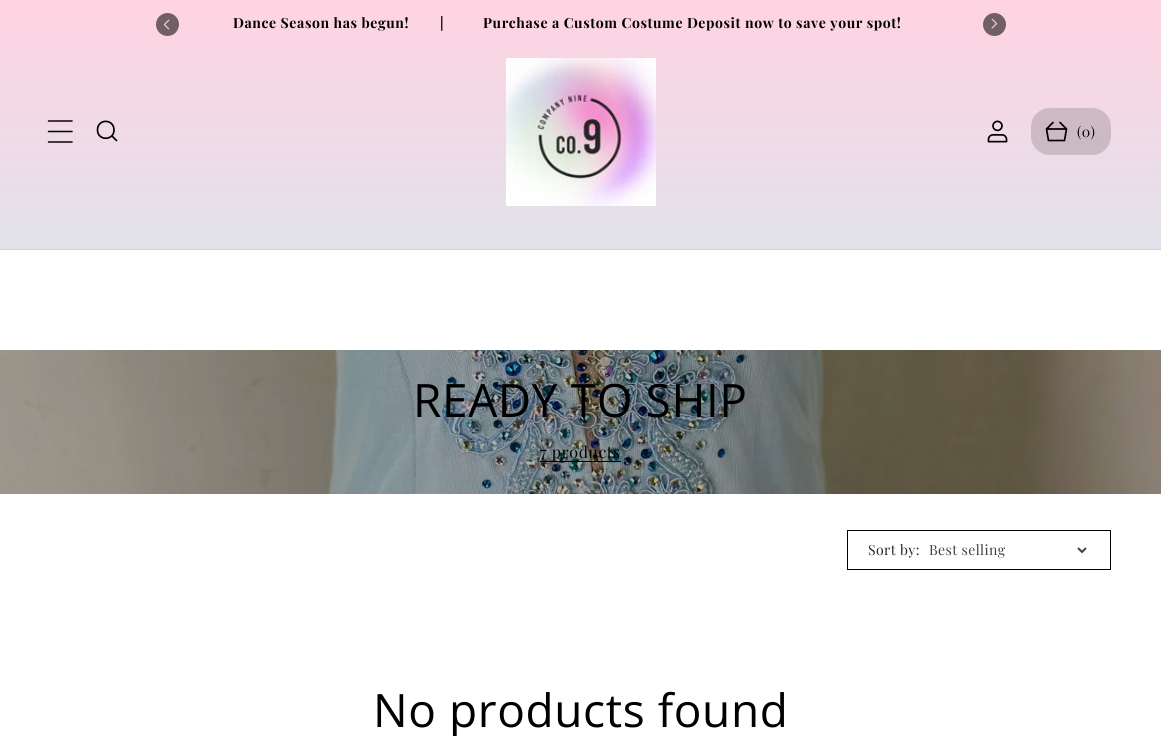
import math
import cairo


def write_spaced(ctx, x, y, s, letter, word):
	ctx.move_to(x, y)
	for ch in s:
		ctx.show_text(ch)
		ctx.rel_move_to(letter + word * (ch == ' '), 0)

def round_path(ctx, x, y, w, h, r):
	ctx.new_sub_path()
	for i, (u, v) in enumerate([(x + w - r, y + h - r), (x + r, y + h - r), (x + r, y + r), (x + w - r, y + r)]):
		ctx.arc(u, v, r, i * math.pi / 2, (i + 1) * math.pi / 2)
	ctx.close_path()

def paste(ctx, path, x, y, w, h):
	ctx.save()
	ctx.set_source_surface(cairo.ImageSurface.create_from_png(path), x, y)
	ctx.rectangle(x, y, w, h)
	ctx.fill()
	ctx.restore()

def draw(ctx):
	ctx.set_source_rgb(1, 1, 1)
	ctx.paint()
	gradient = cairo.LinearGradient(581, 0, 581, 736)
	gradient.add_color_stop_rgba(0, 1, 0.827, 0.886, 1)
	gradient.add_color_stop_rgba(1, 0.659, 1, 0.984, 1)
	ctx.set_source(gradient)
	ctx.rectangle(0, 0, 1161, 46)
	ctx.fill()
	ctx.set_source_rgb(0.439, 0.376, 0.4)
	ctx.arc(167.5, 24.5, 11.5, 0, 2 * math.pi)
	ctx.fill()
	paste(ctx, 'media/1.png', 163, 19, 7, 11)
	ctx.arc(994.5, 24.5, 11.5, 0, 2 * math.pi)
	ctx.fill()
	paste(ctx, 'media/2.png', 991, 18, 7, 11)
	ctx.select_font_face('Playfair Display', cairo.FONT_SLANT_NORMAL, cairo.FONT_WEIGHT_BOLD)
	ctx.set_font_size(14)
	ctx.set_source_rgb(0, 0, 0)
	write_spaced(ctx, 233, 28, 'Dance Season has begun!        |', 0.6, 0)
	write_spaced(ctx, 483, 28, 'Purchase a Custom Costume Deposit now to save your spot!', 0.6, 0)
	gradient = cairo.LinearGradient(581, 0, 581, 736)
	gradient.add_color_stop_rgba(0, 1, 0.827, 0.886, 1)
	gradient.add_color_stop_rgba(1, 0.659, 1, 0.984, 1)
	ctx.set_source(gradient)
	ctx.rectangle(0, 46, 1161, 203)
	ctx.fill()
	ctx.set_source_rgb(0.816, 0.816, 0.843)
	ctx.rectangle(0, 249, 1161, 1)
	ctx.fill()
	paste(ctx, 'media/3.png', 47, 120, 26, 23)
	ctx.new_path()
	ctx.move_to(116.5, 140.5)
	ctx.line_to(112, 136)
	ctx.move_to(114, 130)
	ctx.curve_to(114, 118.5, 97.5, 118.5, 97.5, 130)
	ctx.curve_to(97.5, 141, 114, 141, 114, 130)
	ctx.close_path()
	ctx.set_source_rgb(0, 0, 0)
	ctx.set_line_width(1.7)
	ctx.set_line_cap(cairo.LINE_CAP_ROUND)
	ctx.set_line_join(cairo.LINE_JOIN_ROUND)
	ctx.stroke()
	paste(ctx, 'media/4.png', 506, 58, 150, 148)
	paste(ctx, 'media/5.png', 987, 120, 21, 23)
	ctx.set_source_rgba(0, 0, 0, 0.15)
	round_path(ctx, 1031, 108, 80, 47, 19)
	ctx.fill()
	ctx.new_path()
	ctx.move_to(1046.5, 129)
	ctx.line_to(1066.5, 129)
	ctx.move_to(1046.5, 129)
	ctx.line_to(1048.5, 140.5)
	ctx.line_to(1064.5, 140.5)
	ctx.line_to(1066.5, 129)
	ctx.move_to(1046.5, 129)
	ctx.line_to(1053, 122.5)
	ctx.move_to(1066.5, 129)
	ctx.line_to(1060, 122.5)
	ctx.set_source_rgb(0, 0, 0)
	ctx.stroke()
	ctx.select_font_face('Playfair Display')
	write_spaced(ctx, 1077, 137, '(0)', 0.6, 0)
	paste(ctx, 'media/6.png', 0, 350, 1161, 144)
	ctx.select_font_face('Open Sans')
	ctx.set_font_size(46)
	write_spaced(ctx, 413, 417, 'READY TO SHIP', 0.6, 0)
	ctx.select_font_face('Playfair Display')
	ctx.set_font_size(16)
	write_spaced(ctx, 540, 458, '7 products', 0.6, 0)
	ctx.rectangle(540, 461, 81, 1)
	ctx.fill()
	ctx.rectangle(847.5, 530.5, 263, 39)
	ctx.set_line_width(1)
	ctx.set_line_cap(cairo.LINE_CAP_BUTT)
	ctx.set_line_join(cairo.LINE_JOIN_MITER)
	ctx.stroke()
	ctx.set_font_size(14)
	ctx.set_source_rgb(0.149, 0.149, 0.149)
	write_spaced(ctx, 868, 555, 'Sort by:', 0.4, 0)
	ctx.new_path()
	ctx.move_to(1078, 548)
	ctx.line_to(1082, 552)
	ctx.line_to(1086, 548)
	ctx.set_source_rgb(0.251, 0.251, 0.251)
	ctx.set_line_width(2)
	ctx.stroke()
	write_spaced(ctx, 929, 555, 'Best selling', 0.4, 0)
	ctx.select_font_face('Open Sans')
	ctx.set_font_size(46)
	ctx.set_source_rgb(0, 0, 0)
	write_spaced(ctx, 373, 727, 'No products found', 0.6, 0)


surface = cairo.ImageSurface(cairo.FORMAT_RGB24, 1161, 736)
ctx = cairo.Context(surface)
options = cairo.FontOptions()
options.set_hint_metrics(cairo.HINT_METRICS_OFF)
options.set_hint_style(cairo.HINT_STYLE_NONE)
ctx.set_font_options(options)
ctx.set_miter_limit(4)
draw(ctx)
surface.write_to_png('image.png')
